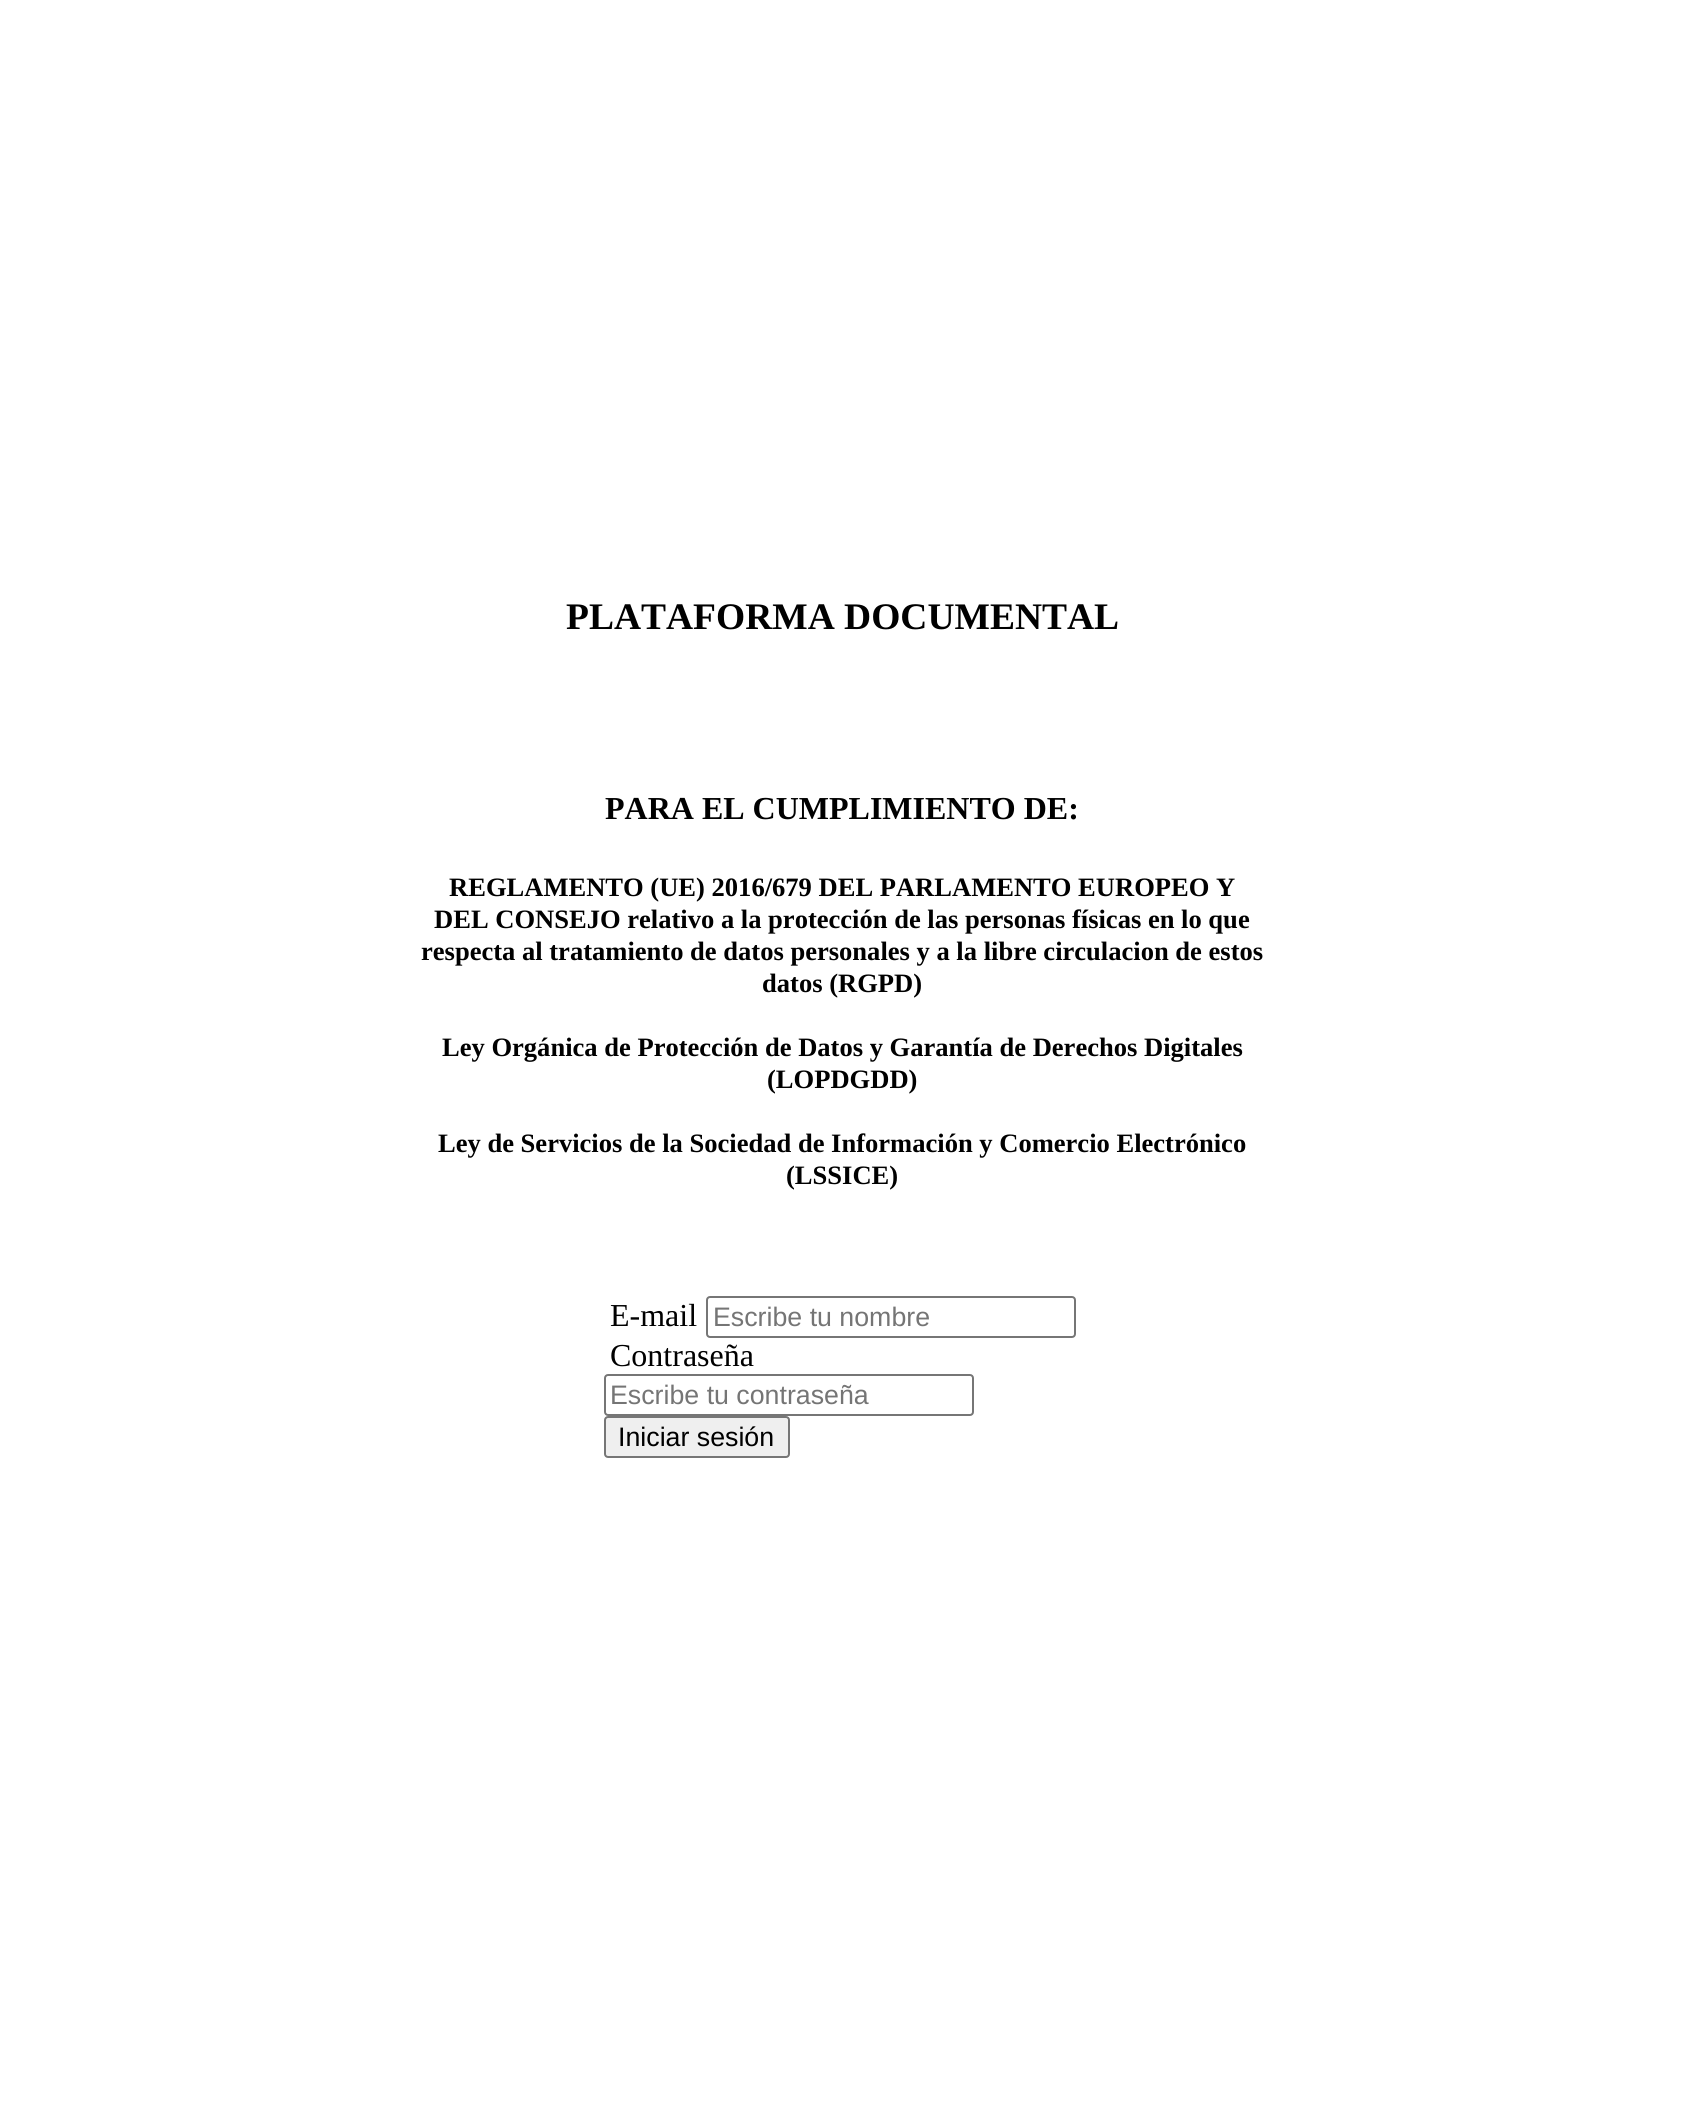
import math
import cairo


def round_path(ctx, x, y, w, h, r):
	ctx.new_sub_path()
	for i, (u, v) in enumerate([(x + w - r, y + h - r), (x + r, y + h - r), (x + r, y + r), (x + w - r, y + r)]):
		ctx.arc(u, v, r, i * math.pi / 2, (i + 1) * math.pi / 2)
	ctx.close_path()

def draw(ctx):
	ctx.set_source_rgb(1, 1, 1)
	ctx.paint()
	ctx.select_font_face('Liberation Serif', cairo.FONT_SLANT_NORMAL, cairo.FONT_WEIGHT_BOLD)
	ctx.set_font_size(37.5)
	ctx.set_source_rgb(0, 0, 0)
	ctx.move_to(566, 629)
	ctx.show_text('PLATAFORMA DOCUMENTAL')
	ctx.set_font_size(32)
	ctx.move_to(605, 819)
	ctx.show_text('PARA EL CUMPLIMIENTO DE:')
	ctx.set_font_size(26.55)
	for x, y, s in [
		(449, 896, 'REGLAMENTO (UE) 2016/679 DEL PARLAMENTO EUROPEO Y'),
		(434, 928, 'DEL CONSEJO relativo a la protección de las personas físicas en lo que'),
		(421, 960, 'respecta al tratamiento de datos personales y a la libre circulacion de estos'),
		(762, 992, 'datos (RGPD)'),
		(442, 1056, 'Ley Orgánica de Protección de Datos y Garantía de Derechos Digitales'),
		(767, 1088, '(LOPDGDD)'),
		(438, 1152, 'Ley de Servicios de la Sociedad de Información y Comercio Electrónico'),
		(786, 1184, '(LSSICE)'),
	]:
		ctx.move_to(x, y)
		ctx.show_text(s)
	ctx.select_font_face('Liberation Serif')
	ctx.set_font_size(32)
	ctx.move_to(610, 1326)
	ctx.show_text('E-mail')
	round_path(ctx, 707, 1297, 368, 40, 3)
	ctx.set_source_rgb(0.463, 0.463, 0.463)
	ctx.stroke()
	ctx.select_font_face('Liberation Sans')
	ctx.set_font_size(26.75)
	ctx.set_source_rgb(0.459, 0.459, 0.459)
	ctx.move_to(713, 1326)
	ctx.show_text('Escribe tu nombre')
	ctx.select_font_face('Liberation Serif')
	ctx.set_font_size(32)
	ctx.set_source_rgb(0, 0, 0)
	ctx.move_to(610, 1366)
	ctx.show_text('Contraseña')
	round_path(ctx, 605, 1375, 368, 40, 3)
	ctx.set_source_rgb(0.463, 0.463, 0.463)
	ctx.stroke()
	ctx.select_font_face('Liberation Sans')
	ctx.set_font_size(26.75)
	ctx.set_source_rgb(0.459, 0.459, 0.459)
	ctx.move_to(610, 1404)
	ctx.show_text('Escribe tu contraseña')
	ctx.set_source_rgb(0.937, 0.937, 0.937)
	round_path(ctx, 605, 1417, 184, 40, 3)
	ctx.fill_preserve()
	ctx.set_source_rgb(0.463, 0.463, 0.463)
	ctx.stroke()
	ctx.set_source_rgb(0, 0, 0)
	ctx.move_to(618, 1446)
	ctx.show_text('Iniciar sesión')


surface = cairo.ImageSurface(cairo.FORMAT_RGB24, 1684, 2111)
ctx = cairo.Context(surface)
options = cairo.FontOptions()
options.set_hint_metrics(cairo.HINT_METRICS_OFF)
options.set_hint_style(cairo.HINT_STYLE_NONE)
ctx.set_font_options(options)
ctx.set_miter_limit(4)
draw(ctx)
surface.write_to_png('image.png')
